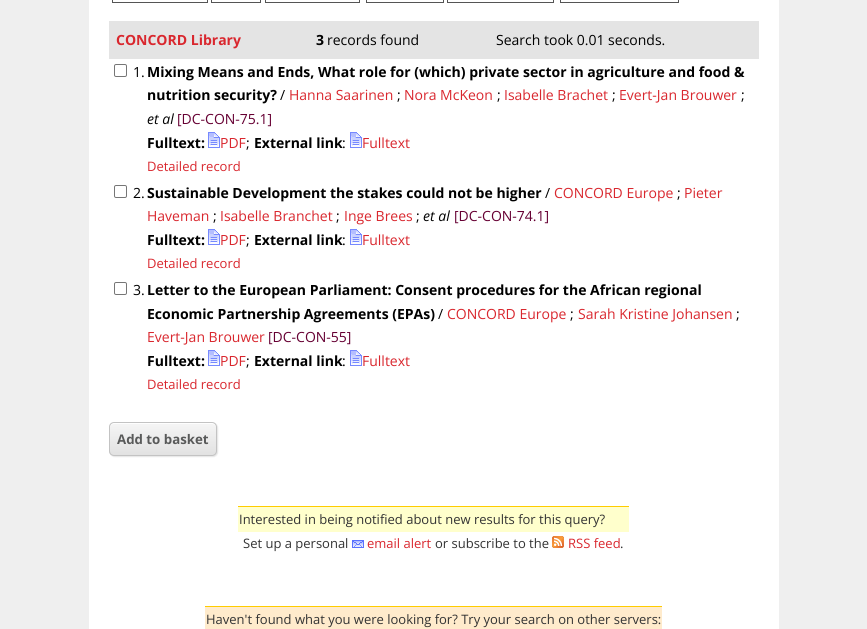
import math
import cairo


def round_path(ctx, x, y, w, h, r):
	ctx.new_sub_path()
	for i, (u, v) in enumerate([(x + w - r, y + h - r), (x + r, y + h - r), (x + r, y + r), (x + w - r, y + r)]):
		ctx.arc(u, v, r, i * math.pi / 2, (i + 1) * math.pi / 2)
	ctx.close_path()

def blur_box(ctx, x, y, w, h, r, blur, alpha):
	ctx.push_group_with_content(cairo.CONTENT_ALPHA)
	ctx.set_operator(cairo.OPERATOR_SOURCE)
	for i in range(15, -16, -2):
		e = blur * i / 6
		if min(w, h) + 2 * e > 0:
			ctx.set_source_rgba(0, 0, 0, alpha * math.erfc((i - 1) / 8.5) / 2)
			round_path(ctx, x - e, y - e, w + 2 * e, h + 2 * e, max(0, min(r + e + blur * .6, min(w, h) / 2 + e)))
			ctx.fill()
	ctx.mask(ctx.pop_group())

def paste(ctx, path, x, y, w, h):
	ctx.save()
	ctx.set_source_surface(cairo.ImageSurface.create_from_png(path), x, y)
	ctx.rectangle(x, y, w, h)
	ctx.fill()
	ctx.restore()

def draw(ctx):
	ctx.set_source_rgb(0.937, 0.937, 0.937)
	ctx.paint()
	ctx.set_source_rgb(1, 1, 1)
	ctx.rectangle(89, 0, 690, 629)
	ctx.fill()
	ctx.rectangle(112.5, -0.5, 95, 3)
	ctx.set_source_rgb(0.333, 0.333, 0.333)
	ctx.set_line_width(1)
	ctx.stroke()
	ctx.rectangle(211.5, -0.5, 49, 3)
	ctx.stroke()
	ctx.rectangle(265.5, -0.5, 94, 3)
	ctx.stroke()
	ctx.rectangle(366.5, -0.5, 77, 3)
	ctx.stroke()
	ctx.rectangle(447.5, -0.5, 106, 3)
	ctx.stroke()
	ctx.rectangle(560.5, -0.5, 118, 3)
	ctx.stroke()
	ctx.set_source_rgb(0.894, 0.894, 0.894)
	ctx.rectangle(109, 21, 650, 38)
	ctx.fill()
	ctx.select_font_face('Open Sans', cairo.FONT_SLANT_NORMAL, cairo.FONT_WEIGHT_BOLD)
	ctx.set_font_size(14)
	ctx.set_source_rgb(0.851, 0.153, 0.18)
	ctx.move_to(116, 45)
	ctx.show_text('CONCORD Library')
	ctx.set_source_rgb(0, 0, 0)
	ctx.move_to(316, 45)
	ctx.show_text('3')
	ctx.select_font_face('Open Sans')
	ctx.move_to(327, 45)
	ctx.show_text('records found')
	ctx.move_to(496, 45)
	ctx.show_text('Search took 0.01 seconds.')
	round_path(ctx, 114.5, 64.5, 12, 12, 1.5)
	ctx.set_source_rgb(0.463, 0.463, 0.463)
	ctx.stroke()
	ctx.set_source_rgb(0, 0, 0)
	ctx.move_to(133, 77)
	ctx.show_text('1.')
	ctx.select_font_face('Open Sans', cairo.FONT_SLANT_NORMAL, cairo.FONT_WEIGHT_BOLD)
	ctx.move_to(147, 77)
	ctx.show_text('Mixing Means and Ends, What role for (which) private sector in agriculture and food &')
	ctx.move_to(147, 100)
	ctx.show_text('nutrition security?')
	ctx.select_font_face('Open Sans')
	ctx.move_to(280, 100)
	ctx.show_text('/')
	ctx.set_source_rgb(0.851, 0.153, 0.18)
	ctx.move_to(289, 100)
	ctx.show_text('Hanna Saarinen')
	ctx.set_source_rgb(0, 0, 0)
	ctx.move_to(397, 100)
	ctx.show_text(';')
	ctx.set_source_rgb(0.851, 0.153, 0.18)
	ctx.move_to(404, 100)
	ctx.show_text('Nora McKeon')
	ctx.set_source_rgb(0, 0, 0)
	ctx.move_to(497, 100)
	ctx.show_text(';')
	ctx.set_source_rgb(0.851, 0.153, 0.18)
	ctx.move_to(504, 100)
	ctx.show_text('Isabelle Brachet')
	ctx.set_source_rgb(0, 0, 0)
	ctx.move_to(612, 100)
	ctx.show_text(';')
	ctx.set_source_rgb(0.851, 0.153, 0.18)
	ctx.move_to(619, 100)
	ctx.show_text('Evert-Jan Brouwer')
	ctx.set_source_rgb(0, 0, 0)
	ctx.move_to(741, 100)
	ctx.show_text(';')
	ctx.select_font_face('Open Sans', cairo.FONT_SLANT_ITALIC)
	ctx.move_to(147, 124)
	ctx.show_text('et al')
	ctx.select_font_face('Open Sans')
	ctx.set_source_rgb(0.4, 0, 0.2)
	ctx.move_to(177, 124)
	ctx.show_text('[DC-CON-75.1]')
	ctx.select_font_face('Open Sans', cairo.FONT_SLANT_NORMAL, cairo.FONT_WEIGHT_BOLD)
	ctx.set_source_rgb(0, 0, 0)
	ctx.move_to(147, 148)
	ctx.show_text('Fulltext:')
	paste(ctx, 'media/1.png', 208, 132, 12, 16)
	ctx.select_font_face('Open Sans')
	ctx.set_source_rgb(0.851, 0.153, 0.18)
	ctx.move_to(220, 148)
	ctx.show_text('PDF')
	ctx.set_source_rgb(0, 0, 0)
	ctx.move_to(246, 148)
	ctx.show_text(';')
	ctx.select_font_face('Open Sans', cairo.FONT_SLANT_NORMAL, cairo.FONT_WEIGHT_BOLD)
	ctx.move_to(254, 148)
	ctx.show_text('External link')
	ctx.select_font_face('Open Sans')
	ctx.move_to(342, 148)
	ctx.show_text(':')
	paste(ctx, 'media/1.png', 350, 132, 12, 16)
	ctx.set_source_rgb(0.851, 0.153, 0.18)
	ctx.move_to(362, 148)
	ctx.show_text('Fulltext')
	ctx.set_font_size(13)
	ctx.move_to(147, 171)
	ctx.show_text('Detailed record')
	round_path(ctx, 114.5, 185.5, 12, 12, 1.5)
	ctx.set_source_rgb(0.463, 0.463, 0.463)
	ctx.stroke()
	ctx.set_font_size(14)
	ctx.set_source_rgb(0, 0, 0)
	ctx.move_to(133, 198)
	ctx.show_text('2.')
	ctx.select_font_face('Open Sans', cairo.FONT_SLANT_NORMAL, cairo.FONT_WEIGHT_BOLD)
	ctx.move_to(147, 198)
	ctx.show_text('Sustainable Development the stakes could not be higher')
	ctx.select_font_face('Open Sans')
	ctx.move_to(545, 198)
	ctx.show_text('/')
	ctx.set_source_rgb(0.851, 0.153, 0.18)
	ctx.move_to(554, 198)
	ctx.show_text('CONCORD Europe')
	ctx.set_source_rgb(0, 0, 0)
	ctx.move_to(677, 198)
	ctx.show_text(';')
	ctx.set_source_rgb(0.851, 0.153, 0.18)
	ctx.move_to(684, 198)
	ctx.show_text('Pieter')
	ctx.move_to(147, 221)
	ctx.show_text('Haveman')
	ctx.set_source_rgb(0, 0, 0)
	ctx.move_to(213, 221)
	ctx.show_text(';')
	ctx.set_source_rgb(0.851, 0.153, 0.18)
	ctx.move_to(220, 221)
	ctx.show_text('Isabelle Branchet')
	ctx.set_source_rgb(0, 0, 0)
	ctx.move_to(336, 221)
	ctx.show_text(';')
	ctx.set_source_rgb(0.851, 0.153, 0.18)
	ctx.move_to(344, 221)
	ctx.show_text('Inge Brees')
	ctx.set_source_rgb(0, 0, 0)
	ctx.move_to(416, 221)
	ctx.show_text(';')
	ctx.select_font_face('Open Sans', cairo.FONT_SLANT_ITALIC)
	ctx.move_to(423, 221)
	ctx.show_text('et al')
	ctx.select_font_face('Open Sans')
	ctx.set_source_rgb(0.4, 0, 0.2)
	ctx.move_to(454, 221)
	ctx.show_text('[DC-CON-74.1]')
	ctx.select_font_face('Open Sans', cairo.FONT_SLANT_NORMAL, cairo.FONT_WEIGHT_BOLD)
	ctx.set_source_rgb(0, 0, 0)
	ctx.move_to(147, 245)
	ctx.show_text('Fulltext:')
	paste(ctx, 'media/1.png', 208, 229, 12, 16)
	ctx.select_font_face('Open Sans')
	ctx.set_source_rgb(0.851, 0.153, 0.18)
	ctx.move_to(220, 245)
	ctx.show_text('PDF')
	ctx.set_source_rgb(0, 0, 0)
	ctx.move_to(246, 245)
	ctx.show_text(';')
	ctx.select_font_face('Open Sans', cairo.FONT_SLANT_NORMAL, cairo.FONT_WEIGHT_BOLD)
	ctx.move_to(254, 245)
	ctx.show_text('External link')
	ctx.select_font_face('Open Sans')
	ctx.move_to(342, 245)
	ctx.show_text(':')
	paste(ctx, 'media/1.png', 350, 229, 12, 16)
	ctx.set_source_rgb(0.851, 0.153, 0.18)
	ctx.move_to(362, 245)
	ctx.show_text('Fulltext')
	ctx.set_font_size(13)
	ctx.move_to(147, 268)
	ctx.show_text('Detailed record')
	round_path(ctx, 114.5, 282.5, 12, 12, 1.5)
	ctx.set_source_rgb(0.463, 0.463, 0.463)
	ctx.stroke()
	ctx.set_font_size(14)
	ctx.set_source_rgb(0, 0, 0)
	ctx.move_to(133, 295)
	ctx.show_text('3.')
	ctx.select_font_face('Open Sans', cairo.FONT_SLANT_NORMAL, cairo.FONT_WEIGHT_BOLD)
	ctx.move_to(147, 295)
	ctx.show_text('Letter to the European Parliament: Consent procedures for the African regional')
	ctx.move_to(147, 319)
	ctx.show_text('Economic Partnership Agreements (EPAs)')
	ctx.select_font_face('Open Sans')
	ctx.move_to(438, 319)
	ctx.show_text('/')
	ctx.set_source_rgb(0.851, 0.153, 0.18)
	ctx.move_to(447, 319)
	ctx.show_text('CONCORD Europe')
	ctx.set_source_rgb(0, 0, 0)
	ctx.move_to(570, 319)
	ctx.show_text(';')
	ctx.set_source_rgb(0.851, 0.153, 0.18)
	ctx.move_to(578, 319)
	ctx.show_text('Sarah Kristine Johansen')
	ctx.set_source_rgb(0, 0, 0)
	ctx.move_to(736, 319)
	ctx.show_text(';')
	ctx.set_source_rgb(0.851, 0.153, 0.18)
	ctx.move_to(147, 342)
	ctx.show_text('Evert-Jan Brouwer')
	ctx.set_source_rgb(0.4, 0, 0.2)
	ctx.move_to(268, 342)
	ctx.show_text('[DC-CON-55]')
	ctx.select_font_face('Open Sans', cairo.FONT_SLANT_NORMAL, cairo.FONT_WEIGHT_BOLD)
	ctx.set_source_rgb(0, 0, 0)
	ctx.move_to(147, 366)
	ctx.show_text('Fulltext:')
	paste(ctx, 'media/1.png', 208, 350, 12, 16)
	ctx.select_font_face('Open Sans')
	ctx.set_source_rgb(0.851, 0.153, 0.18)
	ctx.move_to(220, 366)
	ctx.show_text('PDF')
	ctx.set_source_rgb(0, 0, 0)
	ctx.move_to(246, 366)
	ctx.show_text(';')
	ctx.select_font_face('Open Sans', cairo.FONT_SLANT_NORMAL, cairo.FONT_WEIGHT_BOLD)
	ctx.move_to(254, 366)
	ctx.show_text('External link')
	ctx.select_font_face('Open Sans')
	ctx.move_to(342, 366)
	ctx.show_text(':')
	paste(ctx, 'media/1.png', 350, 350, 12, 16)
	ctx.set_source_rgb(0.851, 0.153, 0.18)
	ctx.move_to(362, 366)
	ctx.show_text('Fulltext')
	ctx.set_font_size(13)
	ctx.move_to(147, 389)
	ctx.show_text('Detailed record')
	ctx.set_source_rgb(0, 0, 0)
	blur_box(ctx, 110, 423, 108, 34, 5, 0.5, 0.1)
	ctx.save()
	round_path(ctx, 109, 422, 108, 34, 5)
	ctx.clip()
	gradient = cairo.LinearGradient(163, 423, 163, 455)
	gradient.add_color_stop_rgba(0, 0.961, 0.961, 0.961, 1)
	gradient.add_color_stop_rgba(1, 0.886, 0.886, 0.886, 1)
	ctx.set_source(gradient)
	ctx.rectangle(109, 423, 108, 32)
	ctx.fill()
	ctx.restore()
	ctx.set_source_rgba(1, 1, 1, 0.9)
	ctx.new_path()
	ctx.move_to(114, 424)
	ctx.line_to(212, 424)
	ctx.curve_to(214, 424, 216, 426, 216, 428)
	ctx.curve_to(216, 419, 200, 423, 196, 423)
	ctx.line_to(130, 423)
	ctx.curve_to(126, 423, 110, 419, 110, 428)
	ctx.curve_to(110, 426, 112, 424, 114, 424)
	ctx.close_path()
	ctx.fill()
	round_path(ctx, 109.5, 422.5, 107, 33, 4.5)
	ctx.set_source_rgb(0.765, 0.765, 0.765)
	ctx.stroke()
	ctx.select_font_face('Open Sans', cairo.FONT_SLANT_NORMAL, cairo.FONT_WEIGHT_BOLD)
	ctx.set_font_size(13.25)
	ctx.set_source_rgb(0.349, 0.353, 0.353)
	ctx.move_to(117, 444)
	ctx.show_text('Add to basket')
	ctx.set_source_rgb(1, 0.8, 0)
	ctx.rectangle(238, 506, 391, 1)
	ctx.fill()
	ctx.set_source_rgb(1, 1, 0.8)
	ctx.rectangle(238, 507, 391, 25)
	ctx.fill()
	ctx.select_font_face('Open Sans')
	ctx.set_font_size(13)
	ctx.set_source_rgb(0.2, 0.2, 0.2)
	ctx.move_to(239, 524)
	ctx.show_text('Interested in being notified about new results for this query?')
	ctx.move_to(243, 548)
	ctx.show_text('Set up a personal')
	paste(ctx, 'media/2.png', 352, 540, 12, 8)
	ctx.set_source_rgb(0.851, 0.153, 0.18)
	ctx.move_to(367, 548)
	ctx.show_text('email alert')
	ctx.set_source_rgb(0.2, 0.2, 0.2)
	ctx.move_to(435, 548)
	ctx.show_text('or subscribe to the')
	paste(ctx, 'media/3.png', 552, 536, 12, 12)
	ctx.set_source_rgb(0.851, 0.153, 0.18)
	ctx.move_to(568, 548)
	ctx.show_text('RSS feed')
	ctx.set_source_rgb(0.2, 0.2, 0.2)
	ctx.move_to(620, 548)
	ctx.show_text('.')
	ctx.set_source_rgb(1, 0.8, 0)
	ctx.rectangle(205, 606, 457, 1)
	ctx.fill()
	ctx.set_source_rgb(1, 0.918, 0.8)
	ctx.rectangle(205, 607, 457, 22)
	ctx.fill()
	ctx.set_source_rgb(0.2, 0.2, 0.2)
	ctx.move_to(206, 624)
	ctx.show_text('Haven\'t found what you were looking for? Try your search on other servers:')


surface = cairo.ImageSurface(cairo.FORMAT_RGB24, 867, 629)
ctx = cairo.Context(surface)
options = cairo.FontOptions()
options.set_hint_metrics(cairo.HINT_METRICS_OFF)
options.set_hint_style(cairo.HINT_STYLE_NONE)
ctx.set_font_options(options)
ctx.set_miter_limit(4)
draw(ctx)
surface.write_to_png('image.png')
